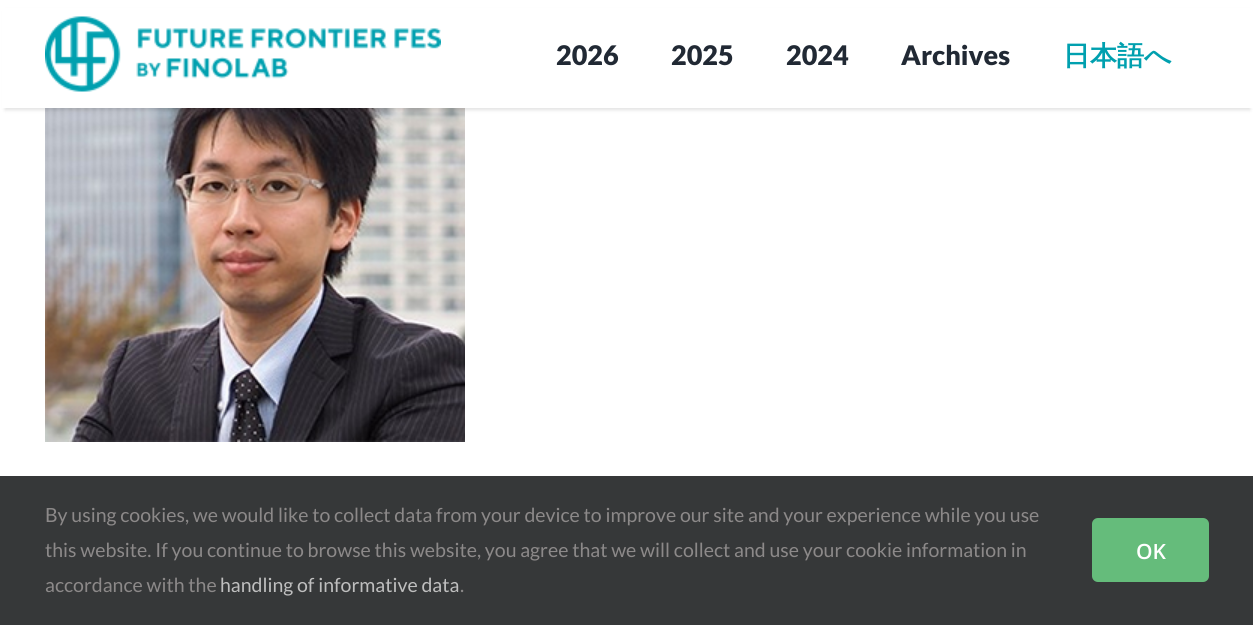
import math
import cairo


def round_path(ctx, x, y, w, h, r):
	ctx.new_sub_path()
	for i, (u, v) in enumerate([(x + w - r, y + h - r), (x + r, y + h - r), (x + r, y + r), (x + w - r, y + r)]):
		ctx.arc(u, v, r, i * math.pi / 2, (i + 1) * math.pi / 2)
	ctx.close_path()

def blur_box(ctx, x, y, w, h, r, blur, alpha):
	ctx.push_group_with_content(cairo.CONTENT_ALPHA)
	ctx.set_operator(cairo.OPERATOR_SOURCE)
	for i in range(15, -16, -2):
		e = blur * i / 6
		if min(w, h) + 2 * e > 0:
			ctx.set_source_rgba(0, 0, 0, alpha * math.erfc((i - 1) / 8.5) / 2)
			round_path(ctx, x - e, y - e, w + 2 * e, h + 2 * e, max(0, min(r + e + blur * .6, min(w, h) / 2 + e)))
			ctx.fill()
	ctx.mask(ctx.pop_group())

def paste(ctx, path, x, y, w, h):
	ctx.save()
	ctx.set_source_surface(cairo.ImageSurface.create_from_png(path), x, y)
	ctx.rectangle(x, y, w, h)
	ctx.fill()
	ctx.restore()

def draw(ctx):
	ctx.set_source_rgb(1, 1, 1)
	ctx.paint()
	paste(ctx, 'media/2.png', 45, 108, 420, 334)
	ctx.set_source_rgb(0, 0, 0)
	blur_box(ctx, 5, 11, 1245, 99, 0, 2, 0.12)
	ctx.set_source_rgb(1, 1, 1)
	ctx.rectangle(2, 8, 1251, 100)
	ctx.fill()
	paste(ctx, 'media/1.png', 45, 16, 396, 76)
	ctx.select_font_face('Lato Black')
	ctx.set_font_size(27)
	ctx.set_source_rgb(0.129, 0.161, 0.204)
	for x, y, s in [
		(556, 65, '2026'),
		(671, 65, '2025'),
		(786, 65, '2024'),
		(901, 65, 'Archives'),
	]:
		ctx.move_to(x, y)
		ctx.show_text(s)
	ctx.select_font_face('WenQuanYi Zen Hei', cairo.FONT_SLANT_NORMAL, cairo.FONT_WEIGHT_BOLD)
	ctx.set_source_rgb(0, 0.627, 0.686)
	ctx.move_to(1063, 65)
	ctx.show_text('日本語へ')
	ctx.set_source_rgb(0.212, 0.22, 0.224)
	ctx.rectangle(0, 476, 1253, 149)
	ctx.fill()
	ctx.select_font_face('Lato')
	ctx.set_font_size(19.5)
	ctx.set_source_rgb(0.549, 0.537, 0.537)
	for x, y, s in [
		(45, 522, 'By using cookies, we would like to collect data from your device to improve our site and your experience while you use'),
		(45, 557, 'this website. If you continue to browse this website, you agree that we will collect and use your cookie information in'),
		(45, 592, 'accordance with the'),
	]:
		ctx.move_to(x, y)
		ctx.show_text(s)
	ctx.set_source_rgb(0.749, 0.749, 0.749)
	ctx.move_to(220, 592)
	ctx.show_text('handling of informative data')
	ctx.set_source_rgb(0.549, 0.537, 0.537)
	ctx.move_to(460, 592)
	ctx.show_text('.')
	ctx.set_source_rgb(0.396, 0.737, 0.482)
	round_path(ctx, 1092, 518, 117, 64, 6)
	ctx.fill()
	ctx.select_font_face('Open Sans SemiBold')
	ctx.set_font_size(21)
	ctx.set_source_rgb(1, 1, 1)
	ctx.move_to(1136, 559)
	ctx.show_text('OK')


surface = cairo.ImageSurface(cairo.FORMAT_RGB24, 1253, 625)
ctx = cairo.Context(surface)
options = cairo.FontOptions()
options.set_hint_metrics(cairo.HINT_METRICS_OFF)
options.set_hint_style(cairo.HINT_STYLE_NONE)
ctx.set_font_options(options)
ctx.set_miter_limit(4)
draw(ctx)
surface.write_to_png('image.png')
